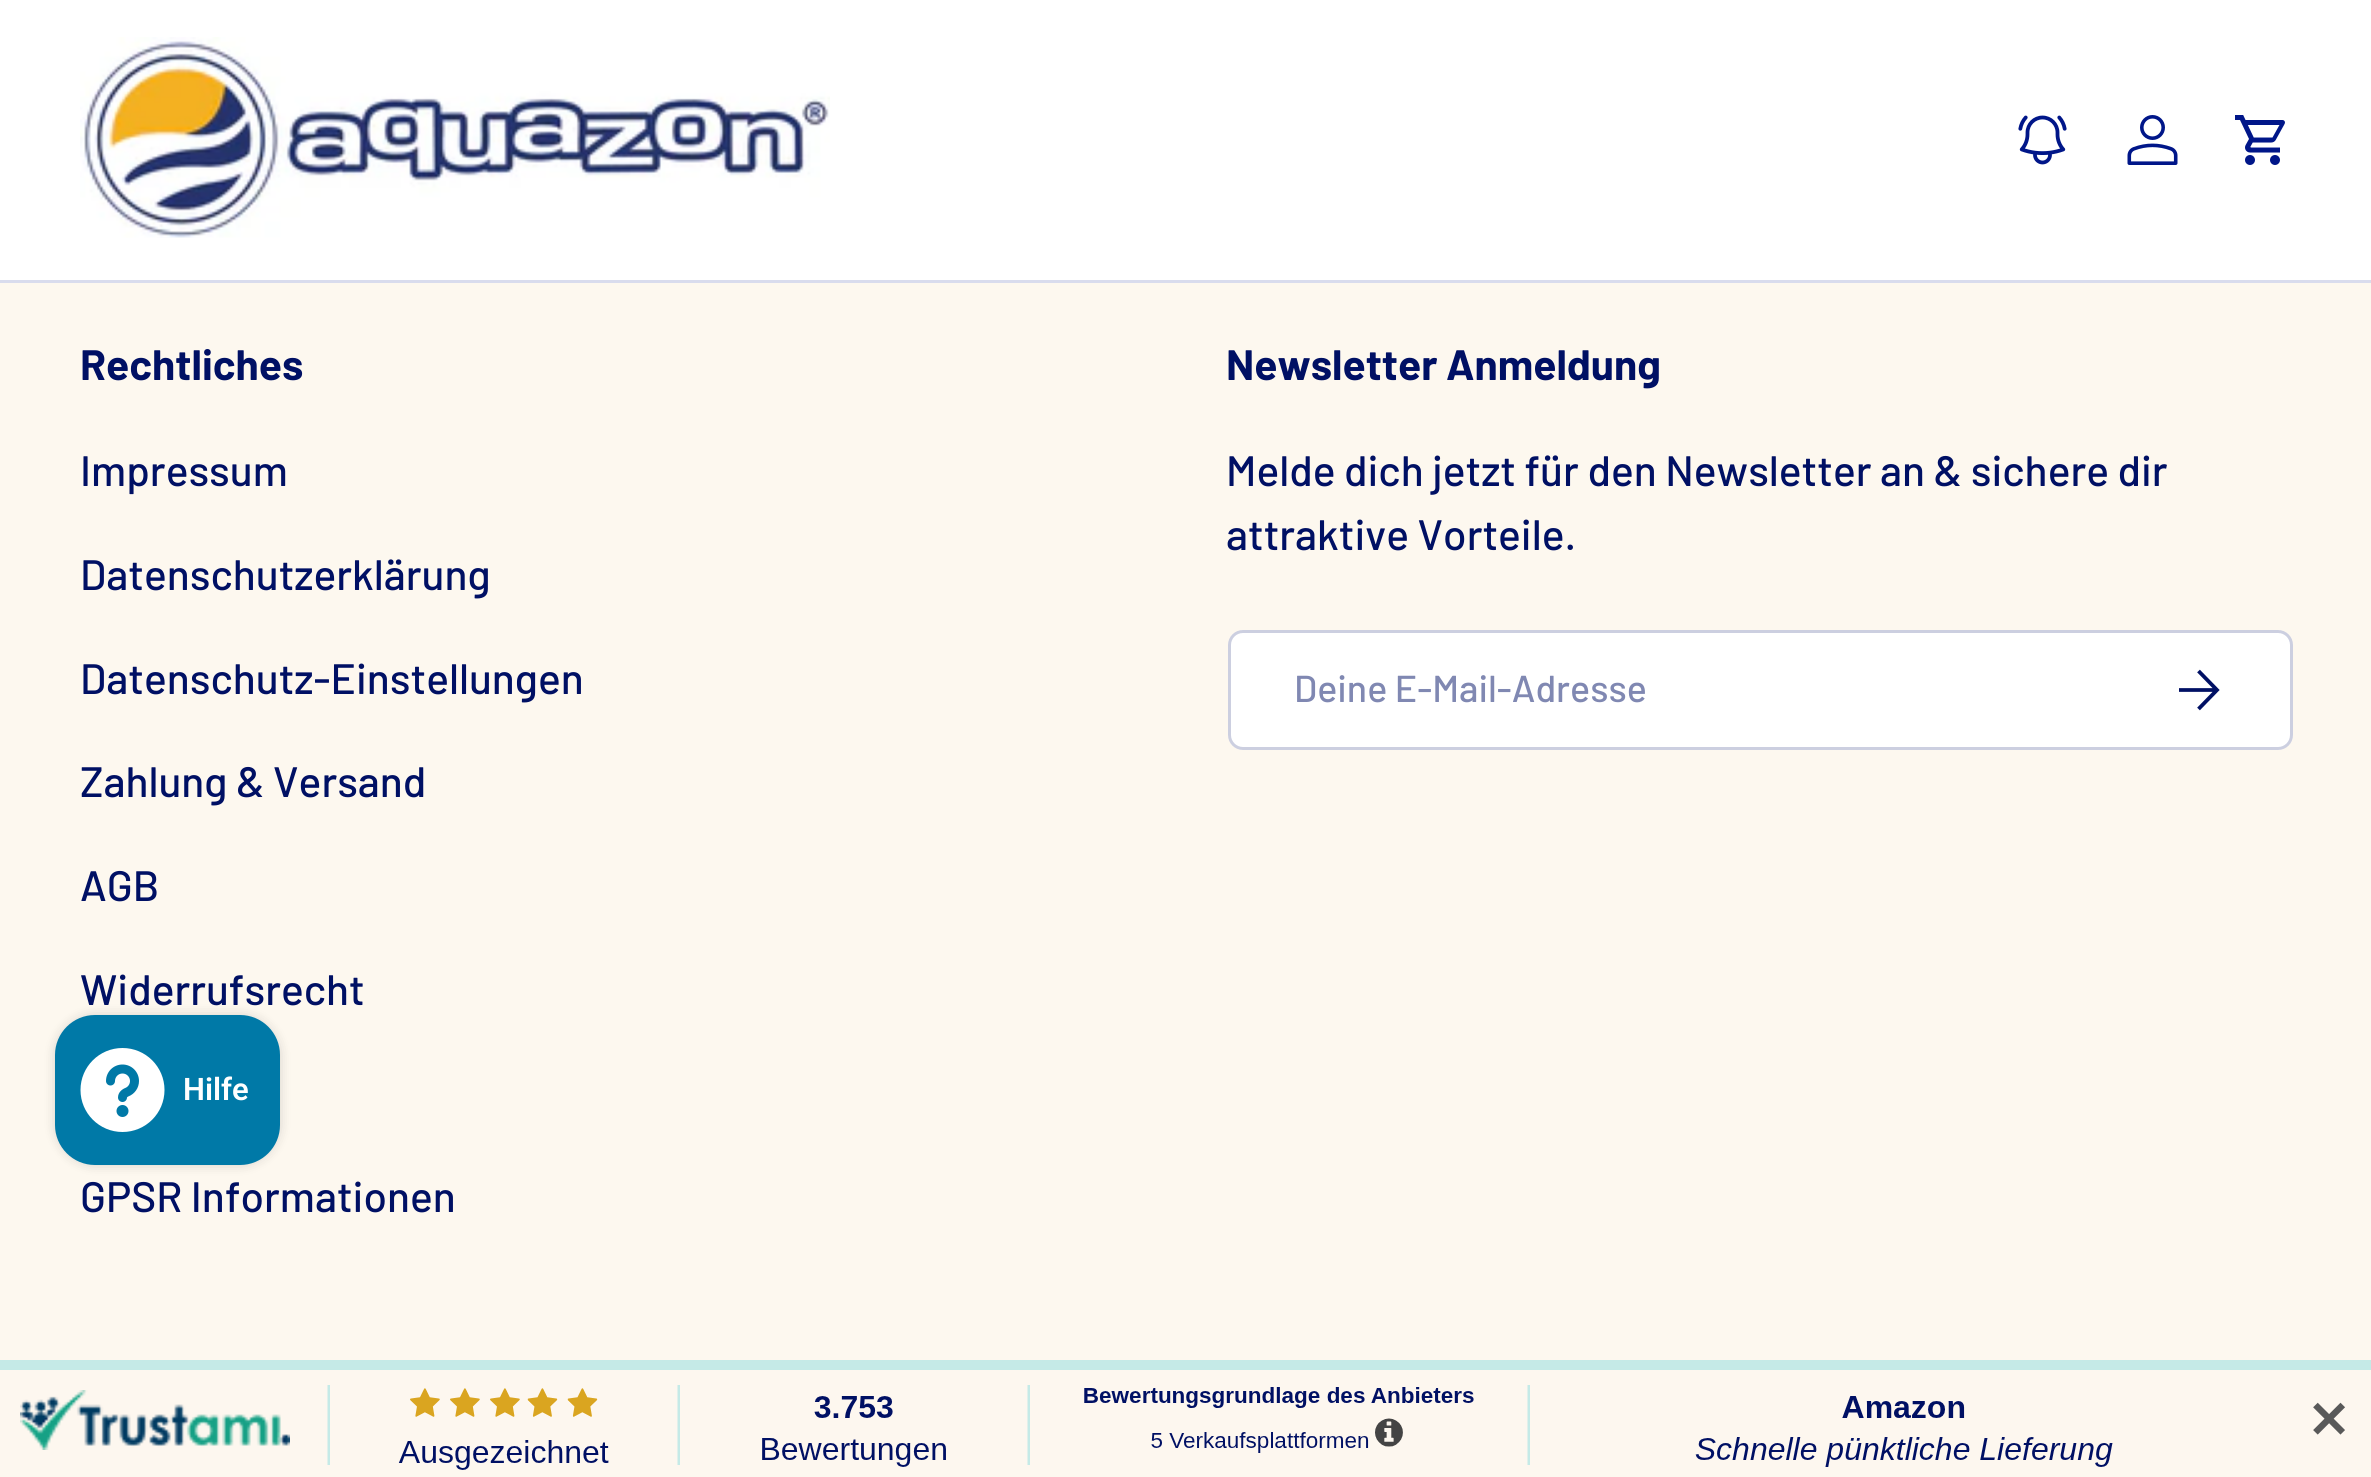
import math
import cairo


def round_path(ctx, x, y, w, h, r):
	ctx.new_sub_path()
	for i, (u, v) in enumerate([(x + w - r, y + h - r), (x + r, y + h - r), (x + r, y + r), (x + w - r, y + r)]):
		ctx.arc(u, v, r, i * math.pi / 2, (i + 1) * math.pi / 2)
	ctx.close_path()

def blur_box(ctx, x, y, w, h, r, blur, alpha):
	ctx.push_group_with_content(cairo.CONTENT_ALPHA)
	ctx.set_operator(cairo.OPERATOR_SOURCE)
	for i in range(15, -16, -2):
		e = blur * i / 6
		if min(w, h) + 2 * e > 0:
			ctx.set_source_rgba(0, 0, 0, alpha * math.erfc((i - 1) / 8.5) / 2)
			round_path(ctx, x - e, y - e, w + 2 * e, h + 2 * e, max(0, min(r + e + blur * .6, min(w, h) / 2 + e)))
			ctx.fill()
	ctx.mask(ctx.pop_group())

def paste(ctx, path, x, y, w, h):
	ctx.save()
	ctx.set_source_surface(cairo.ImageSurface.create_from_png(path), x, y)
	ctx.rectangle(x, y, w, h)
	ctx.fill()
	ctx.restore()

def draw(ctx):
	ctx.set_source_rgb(0.992, 0.969, 0.937)
	ctx.paint()
	ctx.set_source_rgb(1, 1, 1)
	ctx.rectangle(0, 0, 2371, 280)
	ctx.fill()
	ctx.set_source_rgb(0.851, 0.863, 0.929)
	ctx.rectangle(0, 280, 2371, 3)
	ctx.fill()
	paste(ctx, 'media/1.png', 80, 37, 750, 201)
	paste(ctx, 'media/2.png', 2018, 115, 49, 50)
	paste(ctx, 'media/3.png', 2127, 115, 51, 50)
	paste(ctx, 'media/4.png', 2235, 115, 50, 50)
	ctx.select_font_face('Barlow', cairo.FONT_SLANT_NORMAL, cairo.FONT_WEIGHT_BOLD)
	ctx.set_font_size(42.5)
	ctx.set_source_rgb(0, 0.063, 0.392)
	ctx.move_to(80, 380)
	ctx.show_text('Rechtliches')
	ctx.select_font_face('Barlow Medium')
	for x, y, s in [
		(80, 486, 'Impressum'),
		(80, 590, 'Datenschutzerklärung'),
		(80, 694, 'Datenschutz-Einstellungen'),
		(80, 797, 'Zahlung & Versand'),
		(80, 901, 'AGB'),
		(80, 1005, 'Widerrufsrecht'),
		(80, 1212, 'GPSR Informationen'),
	]:
		ctx.move_to(x, y)
		ctx.show_text(s)
	ctx.select_font_face('Barlow', cairo.FONT_SLANT_NORMAL, cairo.FONT_WEIGHT_BOLD)
	ctx.move_to(1226, 380)
	ctx.show_text('Newsletter Anmeldung')
	ctx.select_font_face('Barlow Medium')
	ctx.move_to(1226, 486)
	ctx.show_text('Melde dich jetzt für den Newsletter an & sichere dir')
	ctx.move_to(1226, 550)
	ctx.show_text('attraktive Vorteile.')
	ctx.set_source_rgb(1, 1, 1)
	round_path(ctx, 1228, 630, 1065, 120, 15)
	ctx.fill()
	round_path(ctx, 1229.5, 631.5, 1062, 117, 13.5)
	ctx.set_source_rgba(0, 0.063, 0.392, 0.2)
	ctx.set_line_width(3)
	ctx.stroke()
	ctx.set_font_size(37.5)
	ctx.set_source_rgb(0.502, 0.533, 0.698)
	ctx.move_to(1294, 702)
	ctx.show_text('Deine E-Mail-Adresse')
	ctx.new_path()
	ctx.move_to(2179, 690)
	ctx.line_to(2216, 690)
	ctx.move_to(2198.5, 671)
	ctx.line_to(2217, 690)
	ctx.line_to(2198.5, 709)
	ctx.set_source_rgb(0, 0.063, 0.392)
	ctx.set_line_width(3.8)
	ctx.stroke()
	ctx.set_source_rgb(0, 0, 0)
	blur_box(ctx, 55, 1015, 225, 150, 40, 6, 0.15)
	ctx.set_source_rgb(0, 0.475, 0.655)
	round_path(ctx, 55, 1015, 225, 150, 40)
	ctx.fill()
	paste(ctx, 'media/5.png', 80, 1048, 85, 84)
	ctx.select_font_face('Roboto SemiBold')
	ctx.set_font_size(31)
	ctx.set_source_rgb(1, 1, 1)
	ctx.move_to(183, 1100)
	ctx.show_text('Hilfe')
	paste(ctx, 'media/6.png', 0, 1360, 2371, 110)
	ctx.select_font_face('DejaVu Sans', cairo.FONT_SLANT_NORMAL, cairo.FONT_WEIGHT_BOLD)
	ctx.set_font_size(51)
	ctx.set_source_rgb(0.349, 0.349, 0.349)
	ctx.move_to(2307, 1438)
	ctx.show_text('✕')


surface = cairo.ImageSurface(cairo.FORMAT_RGB24, 2371, 1477)
ctx = cairo.Context(surface)
options = cairo.FontOptions()
options.set_hint_metrics(cairo.HINT_METRICS_OFF)
options.set_hint_style(cairo.HINT_STYLE_NONE)
ctx.set_font_options(options)
ctx.set_miter_limit(4)
draw(ctx)
surface.write_to_png('image.png')
